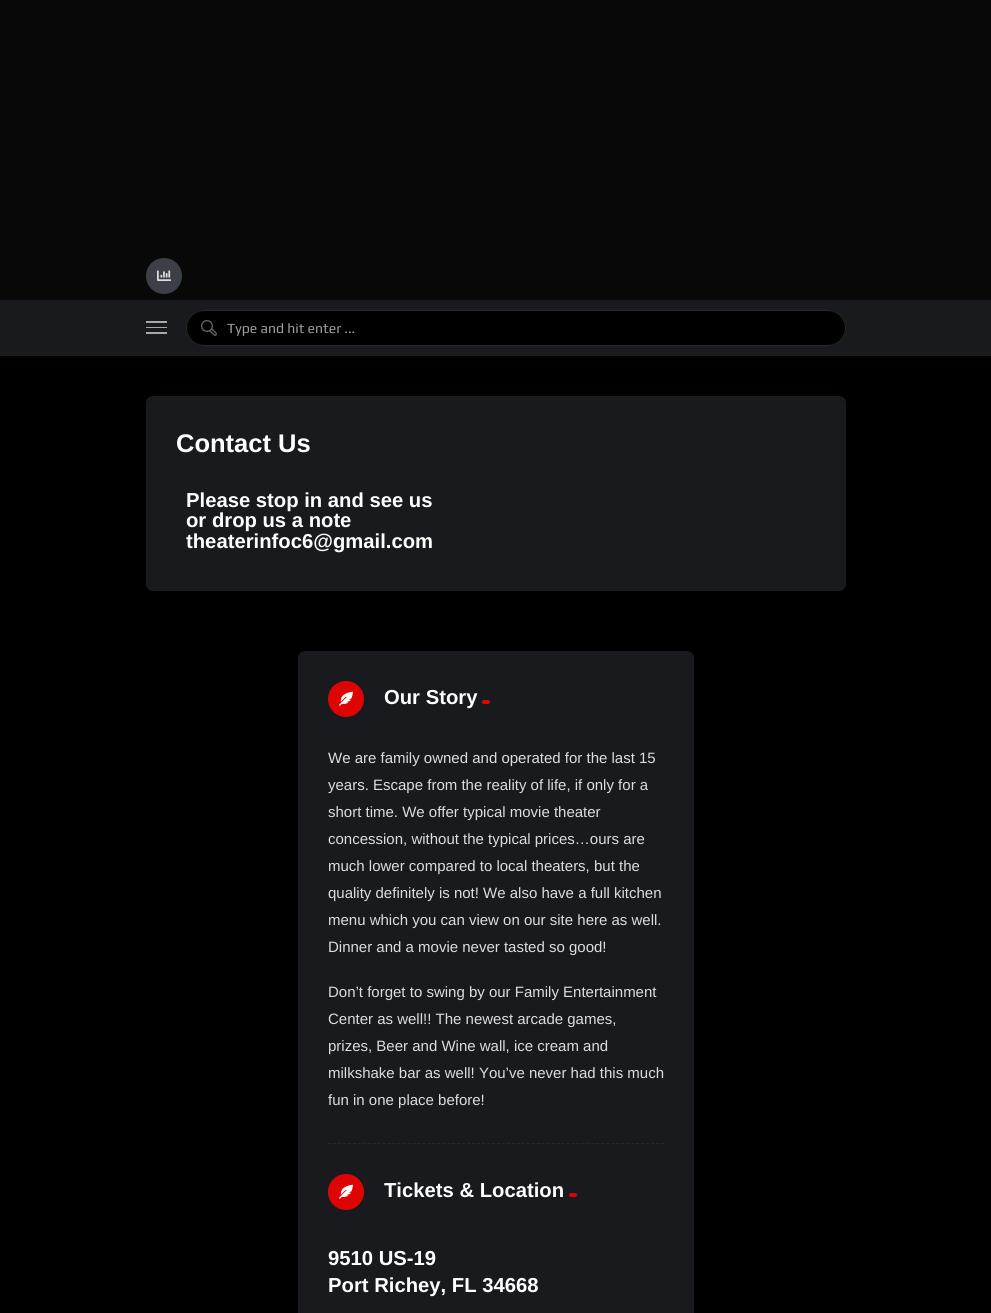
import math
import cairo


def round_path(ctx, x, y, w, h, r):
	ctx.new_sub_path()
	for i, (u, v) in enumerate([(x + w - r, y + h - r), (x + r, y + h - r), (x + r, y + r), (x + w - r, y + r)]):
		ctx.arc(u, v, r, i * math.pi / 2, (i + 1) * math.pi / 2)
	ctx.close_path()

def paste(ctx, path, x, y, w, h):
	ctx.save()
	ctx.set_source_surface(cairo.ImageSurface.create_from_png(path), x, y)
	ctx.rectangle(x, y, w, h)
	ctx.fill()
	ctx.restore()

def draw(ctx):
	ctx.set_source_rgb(0.004, 0, 0.004)
	ctx.paint()
	ctx.set_source_rgb(0.035, 0.035, 0.035)
	ctx.rectangle(0, 0, 991, 300)
	ctx.fill()
	ctx.set_source_rgb(0.235, 0.247, 0.275)
	ctx.arc(164, 276, 18, 0, 2 * math.pi)
	ctx.fill()
	paste(ctx, 'media/1.png', 157, 270, 14, 11)
	ctx.set_source_rgb(0.098, 0.102, 0.114)
	ctx.rectangle(0, 300, 991, 56)
	ctx.fill()
	ctx.set_source_rgb(0.659, 0.659, 0.659)
	ctx.rectangle(146, 321, 21, 2)
	ctx.rectangle(146, 327, 21, 1)
	ctx.rectangle(146, 332, 21, 2)
	ctx.fill()
	ctx.set_source_rgb(0.004, 0, 0.004)
	round_path(ctx, 186, 310, 660, 36, 18)
	ctx.fill()
	paste(ctx, 'media/2.png', 201, 320, 16, 16)
	round_path(ctx, 186.5, 310.5, 659, 35, 17.5)
	ctx.set_source_rgb(0.157, 0.161, 0.157)
	ctx.set_line_width(1)
	ctx.stroke()
	ctx.select_font_face('Play')
	ctx.set_font_size(14)
	ctx.set_source_rgb(0.627, 0.627, 0.627)
	ctx.move_to(227, 333)
	ctx.show_text('Type and hit enter ...')
	ctx.set_source_rgb(0.098, 0.102, 0.114)
	round_path(ctx, 146, 396, 700, 195, 7)
	ctx.fill()
	ctx.select_font_face('Liberation Sans', cairo.FONT_SLANT_NORMAL, cairo.FONT_WEIGHT_BOLD)
	ctx.set_font_size(25.5)
	ctx.set_source_rgb(1, 1, 1)
	ctx.move_to(176, 452)
	ctx.show_text('Contact Us')
	ctx.set_font_size(20.25)
	for x, y, s in [
		(186, 507, 'Please stop in and see us'),
		(186, 527, 'or drop us a note'),
		(186, 548, 'theaterinfoc6@gmail.com'),
	]:
		ctx.move_to(x, y)
		ctx.show_text(s)
	ctx.set_source_rgb(0.098, 0.102, 0.114)
	round_path(ctx, 298, 651, 396, 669, 7)
	ctx.fill()
	ctx.new_path()
	ctx.move_to(328, 1143.5)
	ctx.line_to(664, 1143.5)
	ctx.set_source_rgb(0.157, 0.157, 0.157)
	ctx.set_dash([3, 1.97])
	ctx.stroke()
	ctx.set_source_rgb(0.871, 0.016, 0.016)
	ctx.arc(346, 699, 18, 0, 2 * math.pi)
	ctx.fill()
	paste(ctx, 'media/3.png', 339, 691, 14, 15)
	ctx.set_source_rgb(1, 1, 1)
	ctx.move_to(384, 704)
	ctx.show_text('Our Story')
	ctx.set_source_rgb(0.871, 0.016, 0.016)
	round_path(ctx, 482, 700, 8, 4, 2)
	ctx.fill()
	ctx.select_font_face('Liberation Sans')
	ctx.set_font_size(15)
	ctx.set_source_rgb(0.867, 0.867, 0.867)
	for x, y, s in [
		(328, 763, 'We are family owned and operated for the last 15'),
		(328, 790, 'years. Escape from the reality of life, if only for a'),
		(328, 817, 'short time. We offer typical movie theater'),
		(328, 844, 'concession, without the typical prices…ours are'),
		(328, 871, 'much lower compared to local theaters, but the'),
		(328, 898, 'quality definitely is not! We also have a full kitchen'),
		(328, 925, 'menu which you can view on our site here as well.'),
		(328, 952, 'Dinner and a movie never tasted so good!'),
		(328, 997, 'Don’t forget to swing by our Family Entertainment'),
		(328, 1024, 'Center as well!! The newest arcade games,'),
		(328, 1051, 'prizes, Beer and Wine wall, ice cream and'),
		(328, 1078, 'milkshake bar as well! You’ve never had this much'),
		(328, 1105, 'fun in one place before!'),
	]:
		ctx.move_to(x, y)
		ctx.show_text(s)
	ctx.set_source_rgb(0.871, 0.016, 0.016)
	ctx.new_path()
	ctx.arc(346, 1192, 18, 0, 2 * math.pi)
	ctx.fill()
	paste(ctx, 'media/3.png', 339, 1184, 14, 15)
	ctx.select_font_face('Liberation Sans', cairo.FONT_SLANT_NORMAL, cairo.FONT_WEIGHT_BOLD)
	ctx.set_font_size(20.25)
	ctx.set_source_rgb(1, 1, 1)
	ctx.move_to(384, 1197)
	ctx.show_text('Tickets & Location')
	ctx.set_source_rgb(0.871, 0.016, 0.016)
	round_path(ctx, 569, 1193, 8, 4, 2)
	ctx.fill()
	ctx.set_source_rgb(1, 1, 1)
	ctx.move_to(328, 1265)
	ctx.show_text('9510 US-19')
	ctx.move_to(328, 1292)
	ctx.show_text('Port Richey, FL 34668')


surface = cairo.ImageSurface(cairo.FORMAT_RGB24, 991, 1313)
ctx = cairo.Context(surface)
options = cairo.FontOptions()
options.set_hint_metrics(cairo.HINT_METRICS_OFF)
options.set_hint_style(cairo.HINT_STYLE_NONE)
ctx.set_font_options(options)
ctx.set_miter_limit(4)
draw(ctx)
surface.write_to_png('image.png')
